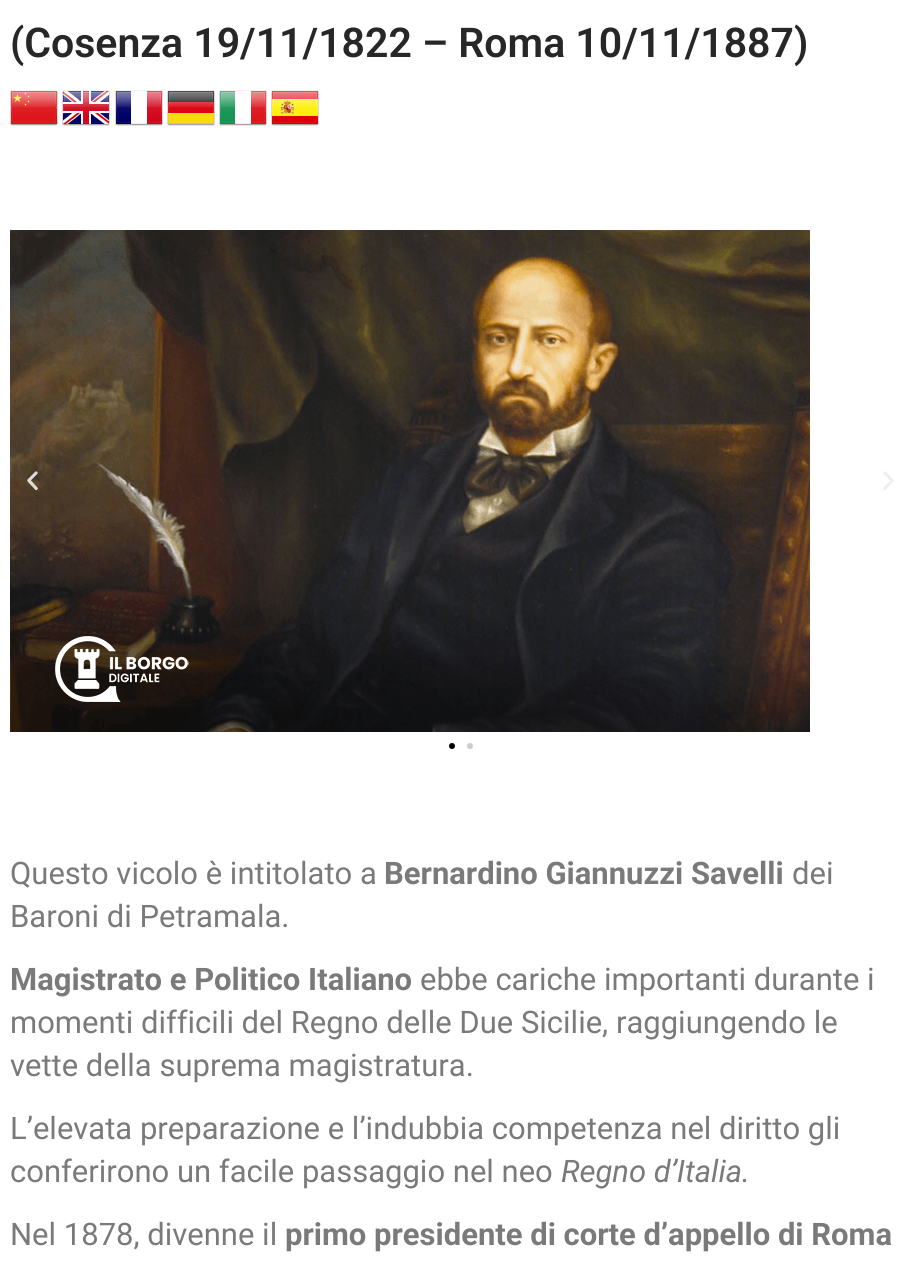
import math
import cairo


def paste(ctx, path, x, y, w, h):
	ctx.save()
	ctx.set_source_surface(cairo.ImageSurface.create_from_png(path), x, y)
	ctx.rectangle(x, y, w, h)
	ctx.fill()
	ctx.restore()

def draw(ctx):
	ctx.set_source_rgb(1, 1, 1)
	ctx.paint()
	ctx.select_font_face('Roboto SemiBold')
	ctx.set_font_size(41)
	ctx.set_source_rgb(0.153, 0.153, 0.153)
	ctx.move_to(10, 57)
	ctx.show_text('(Cosenza 19/11/1822 – Roma 10/11/1887)')
	paste(ctx, 'media/1.png', 10, 90, 48, 36)
	paste(ctx, 'media/2.png', 62, 90, 48, 36)
	paste(ctx, 'media/3.png', 115, 90, 48, 36)
	paste(ctx, 'media/4.png', 167, 90, 48, 36)
	paste(ctx, 'media/5.png', 219, 90, 48, 36)
	paste(ctx, 'media/6.png', 271, 90, 48, 36)
	paste(ctx, 'media/7.png', 10, 230, 800, 502)
	paste(ctx, 'media/8.png', 27, 471, 11, 20)
	paste(ctx, 'media/9.png', 883, 471, 11, 19)
	ctx.set_source_rgb(0, 0, 0)
	ctx.arc(452, 746, 3, 0, 2 * math.pi)
	ctx.fill()
	ctx.set_source_rgb(0.8, 0.8, 0.8)
	ctx.arc(470, 746, 3, 0, 2 * math.pi)
	ctx.fill()
	ctx.select_font_face('Roboto')
	ctx.set_font_size(31)
	ctx.set_source_rgb(0.478, 0.478, 0.478)
	ctx.move_to(10, 884)
	ctx.show_text('Questo vicolo è intitolato a')
	ctx.select_font_face('Roboto', cairo.FONT_SLANT_NORMAL, cairo.FONT_WEIGHT_BOLD)
	ctx.move_to(384, 884)
	ctx.show_text('Bernardino Giannuzzi Savelli')
	ctx.select_font_face('Roboto')
	ctx.move_to(792, 884)
	ctx.show_text('dei')
	ctx.move_to(10, 927)
	ctx.show_text('Baroni di Petramala.')
	ctx.select_font_face('Roboto', cairo.FONT_SLANT_NORMAL, cairo.FONT_WEIGHT_BOLD)
	ctx.move_to(10, 990)
	ctx.show_text('Magistrato e Politico Italiano')
	ctx.select_font_face('Roboto')
	for x, y, s in [
		(420, 990, 'ebbe cariche importanti durante i'),
		(10, 1033, 'momenti difficili del Regno delle Due Sicilie, raggiungendo le'),
		(10, 1076, 'vette della suprema magistratura.'),
		(10, 1139, 'L’elevata preparazione e l’indubbia competenza nel diritto gli'),
		(10, 1182, 'conferirono un facile passaggio nel neo'),
	]:
		ctx.move_to(x, y)
		ctx.show_text(s)
	ctx.select_font_face('Roboto', cairo.FONT_SLANT_ITALIC)
	ctx.move_to(561, 1182)
	ctx.show_text('Regno d’Italia.')
	ctx.select_font_face('Roboto')
	ctx.move_to(10, 1245)
	ctx.show_text('Nel 1878, divenne il')
	ctx.select_font_face('Roboto', cairo.FONT_SLANT_NORMAL, cairo.FONT_WEIGHT_BOLD)
	ctx.move_to(285, 1245)
	ctx.show_text('primo presidente di corte d’appello di Roma')


surface = cairo.ImageSurface(cairo.FORMAT_RGB24, 921, 1263)
ctx = cairo.Context(surface)
options = cairo.FontOptions()
options.set_hint_metrics(cairo.HINT_METRICS_OFF)
options.set_hint_style(cairo.HINT_STYLE_NONE)
ctx.set_font_options(options)
ctx.set_miter_limit(4)
draw(ctx)
surface.write_to_png('image.png')
